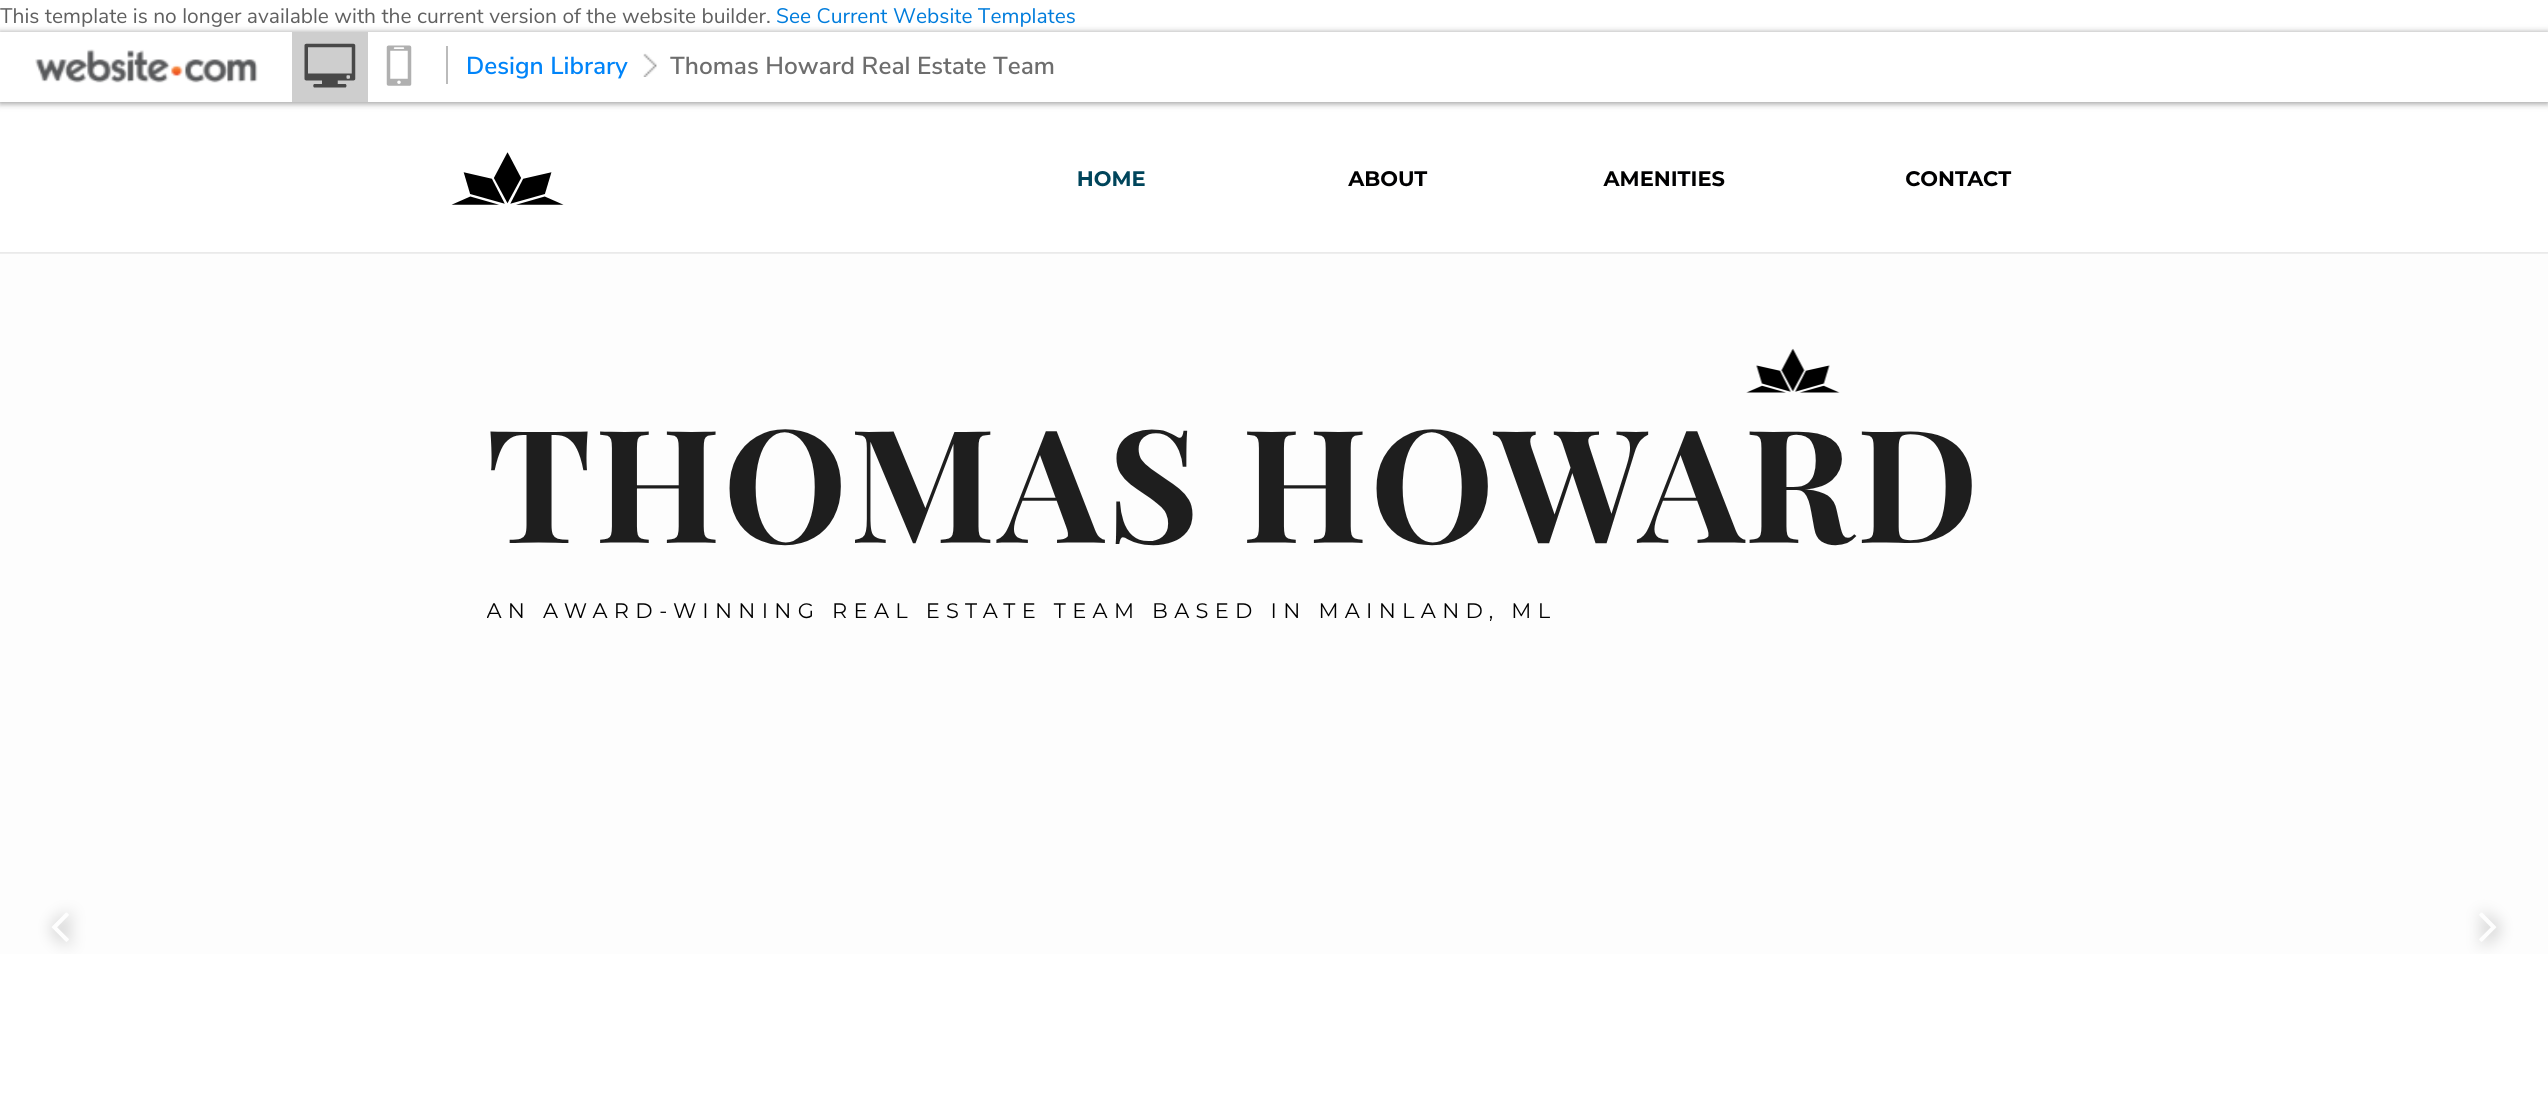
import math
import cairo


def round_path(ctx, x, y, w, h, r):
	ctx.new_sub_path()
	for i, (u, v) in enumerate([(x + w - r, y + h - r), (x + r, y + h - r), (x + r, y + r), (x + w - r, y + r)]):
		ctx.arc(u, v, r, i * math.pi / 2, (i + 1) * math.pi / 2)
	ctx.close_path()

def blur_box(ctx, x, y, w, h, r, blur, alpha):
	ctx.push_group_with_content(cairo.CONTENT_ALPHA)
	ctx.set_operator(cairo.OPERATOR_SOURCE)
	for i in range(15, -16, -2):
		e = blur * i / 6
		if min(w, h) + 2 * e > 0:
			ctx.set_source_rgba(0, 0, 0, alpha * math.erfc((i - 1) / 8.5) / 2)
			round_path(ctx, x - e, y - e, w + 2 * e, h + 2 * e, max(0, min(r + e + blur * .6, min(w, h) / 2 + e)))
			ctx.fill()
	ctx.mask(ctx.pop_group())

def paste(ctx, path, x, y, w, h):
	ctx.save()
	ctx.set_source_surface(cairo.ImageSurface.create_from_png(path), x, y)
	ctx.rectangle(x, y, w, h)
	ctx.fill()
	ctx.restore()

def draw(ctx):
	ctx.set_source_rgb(1, 1, 1)
	ctx.paint()
	ctx.select_font_face('Nunito Sans')
	ctx.set_font_size(21)
	ctx.set_source_rgb(0.376, 0.376, 0.376)
	ctx.move_to(0, 23)
	ctx.show_text('This template is no longer available with the current version of the website builder.')
	ctx.set_source_rgb(0, 0.486, 0.863)
	ctx.move_to(776, 23)
	ctx.show_text('See Current Website Templates')
	paste(ctx, 'media/5.png', 0, 102, 2548, 852)
	ctx.set_source_rgb(0, 0, 0)
	blur_box(ctx, 0, 33, 2548, 70, 0, 3.5, 0.45)
	ctx.set_source_rgb(1, 1, 1)
	ctx.rectangle(0, 32, 2548, 70)
	ctx.fill()
	paste(ctx, 'media/1.png', 35, 49, 223, 34)
	ctx.set_source_rgb(0.808, 0.808, 0.808)
	ctx.rectangle(292, 32, 76, 70)
	ctx.fill()
	paste(ctx, 'media/2.png', 304, 43, 52, 45)
	paste(ctx, 'media/3.png', 386, 45, 26, 41)
	ctx.set_source_rgb(0.733, 0.733, 0.733)
	ctx.rectangle(446, 46, 2, 38)
	ctx.fill()
	ctx.select_font_face('Nunito Sans SemiBold')
	ctx.set_font_size(24.5)
	ctx.set_source_rgb(0, 0.518, 0.976)
	ctx.move_to(466, 74)
	ctx.show_text('Design Library')
	paste(ctx, 'media/4.png', 643, 53, 14, 24)
	ctx.set_source_rgb(0.427, 0.427, 0.427)
	ctx.move_to(670, 74)
	ctx.show_text('Thomas Howard Real Estate Team')


surface = cairo.ImageSurface(cairo.FORMAT_RGB24, 2548, 1098)
ctx = cairo.Context(surface)
options = cairo.FontOptions()
options.set_hint_metrics(cairo.HINT_METRICS_OFF)
options.set_hint_style(cairo.HINT_STYLE_NONE)
ctx.set_font_options(options)
ctx.set_miter_limit(4)
draw(ctx)
surface.write_to_png('image.png')
